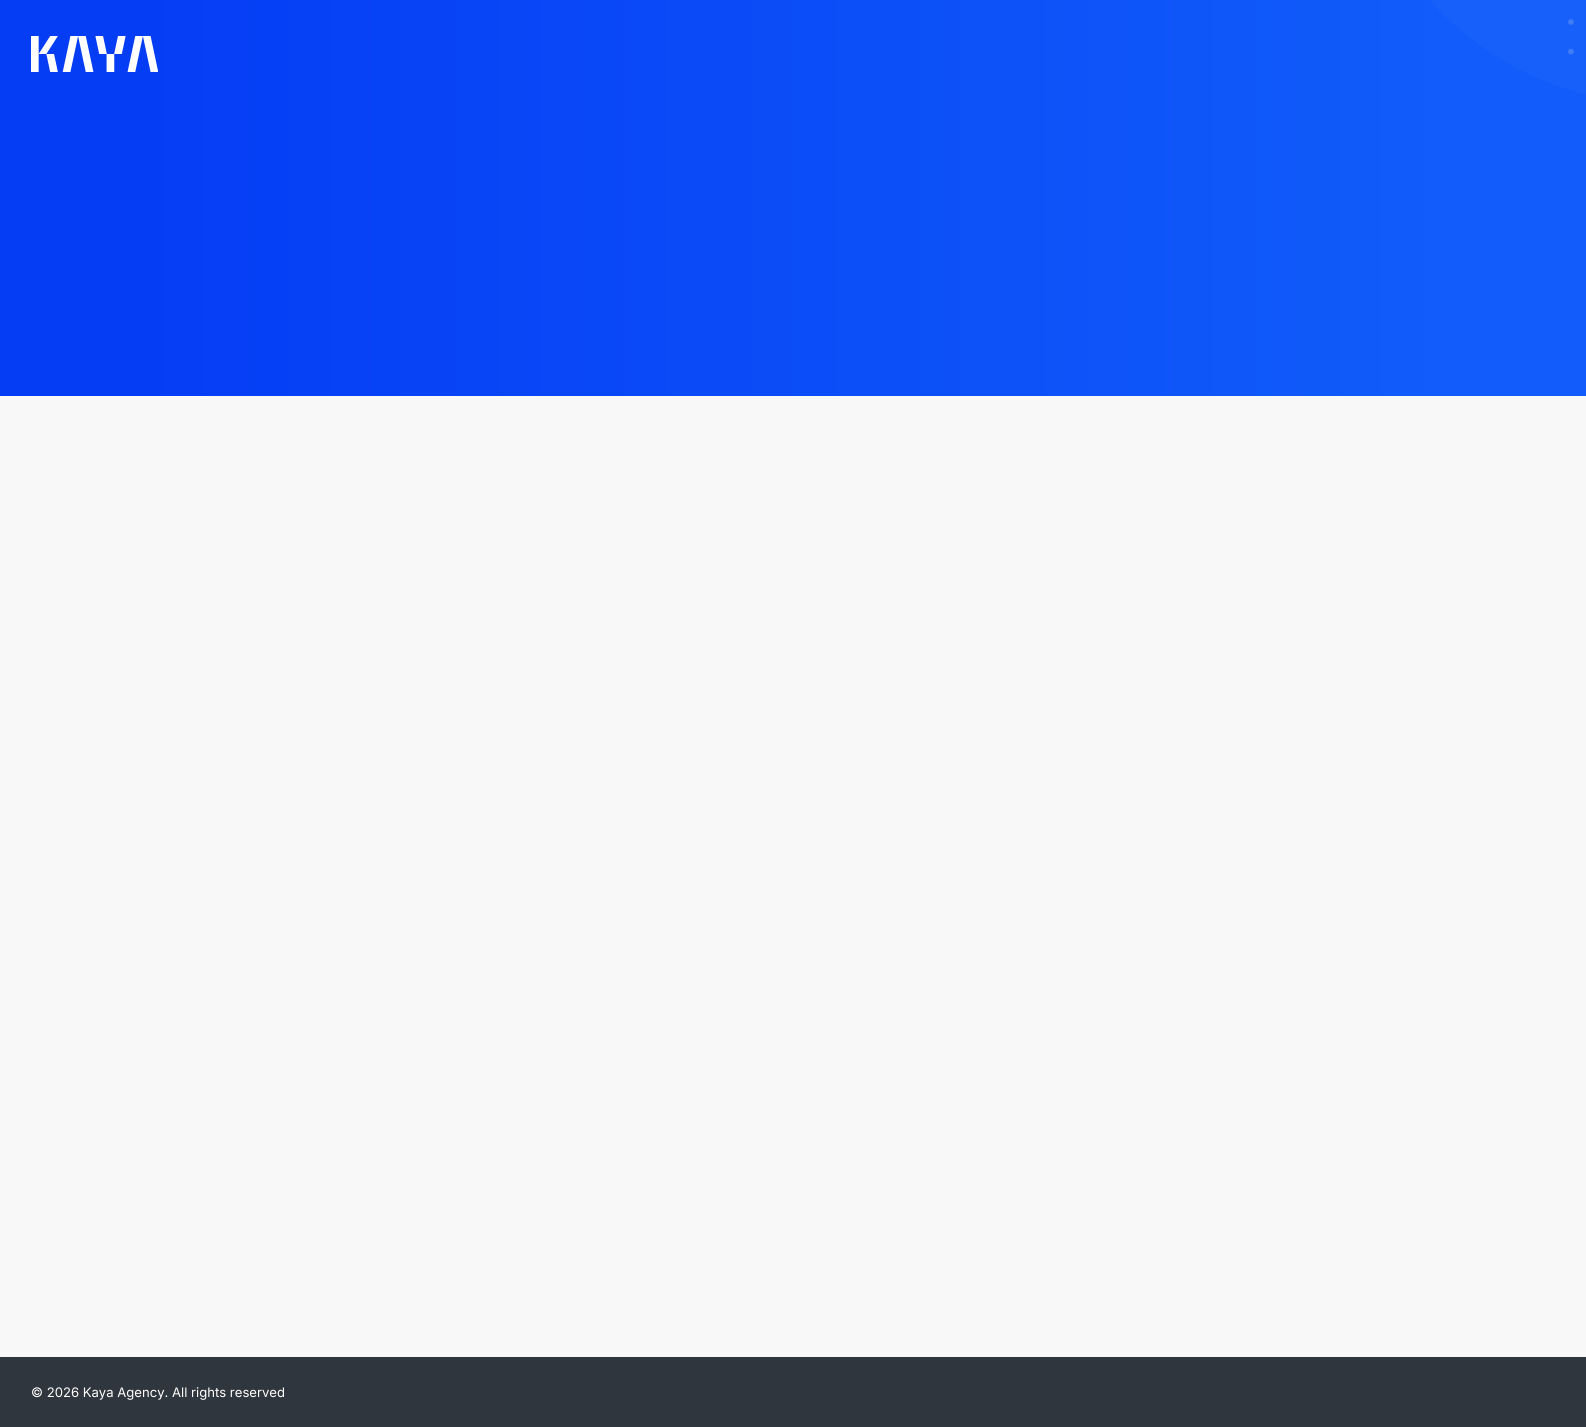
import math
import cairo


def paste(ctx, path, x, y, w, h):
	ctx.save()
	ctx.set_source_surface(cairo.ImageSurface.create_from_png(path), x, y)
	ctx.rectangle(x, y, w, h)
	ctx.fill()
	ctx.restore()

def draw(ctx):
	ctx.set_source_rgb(0.188, 0.212, 0.239)
	ctx.paint()
	gradient = cairo.LinearGradient(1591, 198, -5, 198)
	gradient.add_color_stop_rgba(0.09, 0.067, 0.361, 0.98, 1)
	gradient.add_color_stop_rgba(0.91, 0.02, 0.239, 0.961, 1)
	ctx.set_source(gradient)
	ctx.rectangle(0, 0, 1586, 396)
	ctx.fill()
	paste(ctx, 'media/1.png', 31, 36, 127, 36)
	paste(ctx, 'media/2.png', 1431, 0, 155, 94)
	ctx.set_source_rgb(0.969, 0.969, 0.969)
	ctx.rectangle(0, 396, 1586, 961)
	ctx.fill()
	ctx.select_font_face('Inter')
	ctx.set_font_size(13.1)
	ctx.set_source_rgb(1, 1, 1)
	ctx.move_to(31, 1397)
	ctx.show_text('© 2026 Kaya Agency. All rights reserved')


surface = cairo.ImageSurface(cairo.FORMAT_RGB24, 1586, 1427)
ctx = cairo.Context(surface)
options = cairo.FontOptions()
options.set_hint_metrics(cairo.HINT_METRICS_OFF)
options.set_hint_style(cairo.HINT_STYLE_NONE)
ctx.set_font_options(options)
ctx.set_miter_limit(4)
draw(ctx)
surface.write_to_png('image.png')
